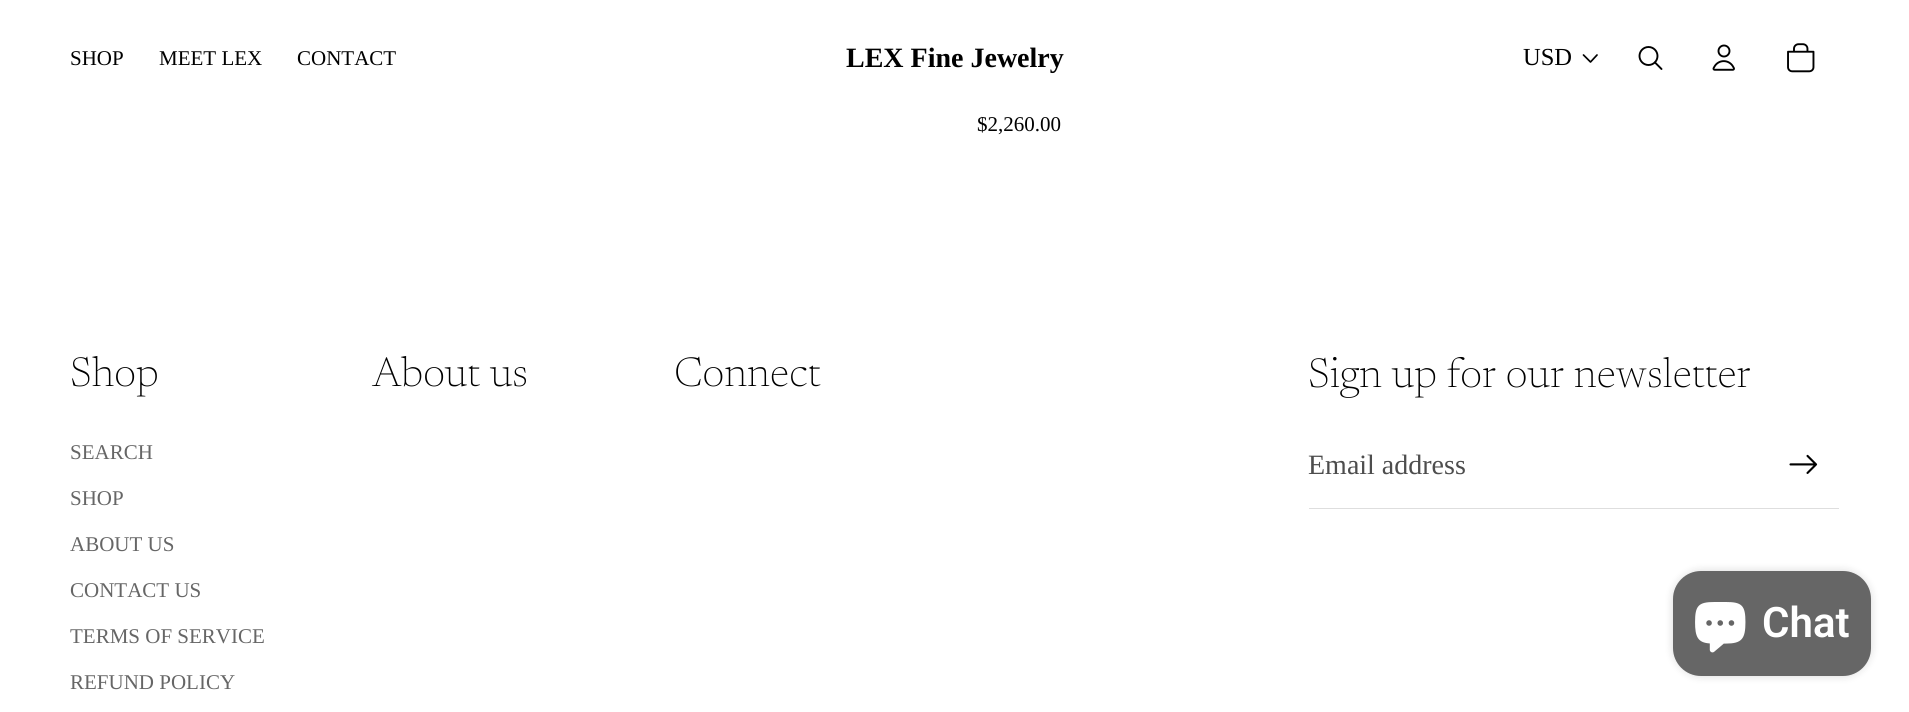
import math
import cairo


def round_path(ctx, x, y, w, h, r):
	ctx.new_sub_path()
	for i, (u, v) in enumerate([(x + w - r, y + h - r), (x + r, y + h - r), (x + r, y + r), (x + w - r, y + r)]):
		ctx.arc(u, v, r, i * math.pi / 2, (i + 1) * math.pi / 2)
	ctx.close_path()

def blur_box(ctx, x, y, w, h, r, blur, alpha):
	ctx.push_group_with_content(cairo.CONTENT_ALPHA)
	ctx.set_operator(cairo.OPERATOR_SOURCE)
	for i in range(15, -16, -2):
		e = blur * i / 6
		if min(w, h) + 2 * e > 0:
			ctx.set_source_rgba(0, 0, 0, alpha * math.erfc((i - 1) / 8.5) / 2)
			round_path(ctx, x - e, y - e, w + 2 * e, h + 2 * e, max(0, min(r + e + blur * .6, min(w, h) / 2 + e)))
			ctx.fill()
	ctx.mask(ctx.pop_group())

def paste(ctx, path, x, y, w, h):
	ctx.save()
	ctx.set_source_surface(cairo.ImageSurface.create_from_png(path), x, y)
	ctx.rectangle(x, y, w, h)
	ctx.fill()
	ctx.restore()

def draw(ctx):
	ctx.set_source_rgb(1, 1, 1)
	ctx.paint()
	ctx.select_font_face('Liberation Serif')
	ctx.set_font_size(21)
	ctx.set_source_rgb(0, 0, 0)
	ctx.move_to(977, 131)
	ctx.show_text('$2,260.00')
	ctx.set_source_rgb(1, 1, 1)
	ctx.rectangle(982, 115, 2, 2)
	ctx.fill()
	ctx.set_source_rgb(0, 0, 0)
	for x, y, s in [
		(70, 65, 'SHOP'),
		(159, 65, 'MEET LEX'),
		(297, 65, 'CONTACT'),
	]:
		ctx.move_to(x, y)
		ctx.show_text(s)
	ctx.select_font_face('Liberation Serif', cairo.FONT_SLANT_NORMAL, cairo.FONT_WEIGHT_BOLD)
	ctx.set_font_size(28)
	ctx.move_to(846, 67)
	ctx.show_text('LEX Fine Jewelry')
	ctx.select_font_face('Liberation Serif')
	ctx.set_font_size(24.5)
	ctx.move_to(1523, 65)
	ctx.show_text('USD')
	ctx.new_path()
	ctx.move_to(1597, 55)
	ctx.line_to(1590.5, 62)
	ctx.line_to(1583.5, 55)
	ctx.set_line_width(1.7)
	ctx.set_line_cap(cairo.LINE_CAP_ROUND)
	ctx.set_line_join(cairo.LINE_JOIN_ROUND)
	ctx.stroke()
	ctx.arc(1648.5, 56, 9, 0, 2 * math.pi)
	ctx.set_line_width(1.9)
	ctx.set_line_cap(cairo.LINE_CAP_BUTT)
	ctx.set_line_join(cairo.LINE_JOIN_MITER)
	ctx.stroke()
	ctx.new_path()
	ctx.move_to(1655, 62.5)
	ctx.line_to(1661.5, 69)
	ctx.set_line_cap(cairo.LINE_CAP_ROUND)
	ctx.set_line_join(cairo.LINE_JOIN_ROUND)
	ctx.stroke()
	paste(ctx, 'media/1.png', 1712, 44, 23, 27)
	paste(ctx, 'media/2.png', 1787, 43, 28, 30)
	ctx.select_font_face('Newsreader ExtraLight')
	ctx.set_font_size(42)
	ctx.move_to(70, 386)
	ctx.show_text('Shop')
	ctx.select_font_face('Liberation Serif')
	ctx.set_font_size(21)
	ctx.set_source_rgb(0.4, 0.4, 0.4)
	for x, y, s in [
		(70, 459, 'SEARCH'),
		(70, 505, 'SHOP'),
		(70, 551, 'ABOUT US'),
		(70, 597, 'CONTACT US'),
		(70, 643, 'TERMS OF SERVICE'),
		(70, 689, 'REFUND POLICY'),
	]:
		ctx.move_to(x, y)
		ctx.show_text(s)
	ctx.select_font_face('Newsreader ExtraLight')
	ctx.set_font_size(42)
	ctx.set_source_rgb(0, 0, 0)
	for x, y, s in [
		(372, 386, 'About us'),
		(674, 386, 'Connect'),
		(1308, 387, 'Sign up for our newsletter'),
	]:
		ctx.move_to(x, y)
		ctx.show_text(s)
	ctx.set_source_rgb(0.871, 0.871, 0.871)
	ctx.rectangle(1309, 508, 530, 1)
	ctx.fill()
	ctx.select_font_face('Liberation Serif')
	ctx.set_font_size(28)
	ctx.set_source_rgb(0.302, 0.302, 0.302)
	ctx.move_to(1308, 474)
	ctx.show_text('Email address')
	paste(ctx, 'media/3.png', 1789, 454, 29, 20)
	ctx.set_source_rgb(0, 0, 0)
	blur_box(ctx, 1673, 571, 198, 105, 28, 4.5, 0.15)
	ctx.set_source_rgb(0.4, 0.4, 0.4)
	round_path(ctx, 1673, 571, 198, 105, 28)
	ctx.fill()
	paste(ctx, 'media/4.png', 1695, 602, 51, 51)
	ctx.select_font_face('Roboto SemiBold')
	ctx.set_font_size(42)
	ctx.set_source_rgb(1, 1, 1)
	ctx.move_to(1762, 637)
	ctx.show_text('Chat')


surface = cairo.ImageSurface(cairo.FORMAT_RGB24, 1909, 712)
ctx = cairo.Context(surface)
options = cairo.FontOptions()
options.set_hint_metrics(cairo.HINT_METRICS_OFF)
options.set_hint_style(cairo.HINT_STYLE_NONE)
ctx.set_font_options(options)
ctx.set_miter_limit(4)
draw(ctx)
surface.write_to_png('image.png')
